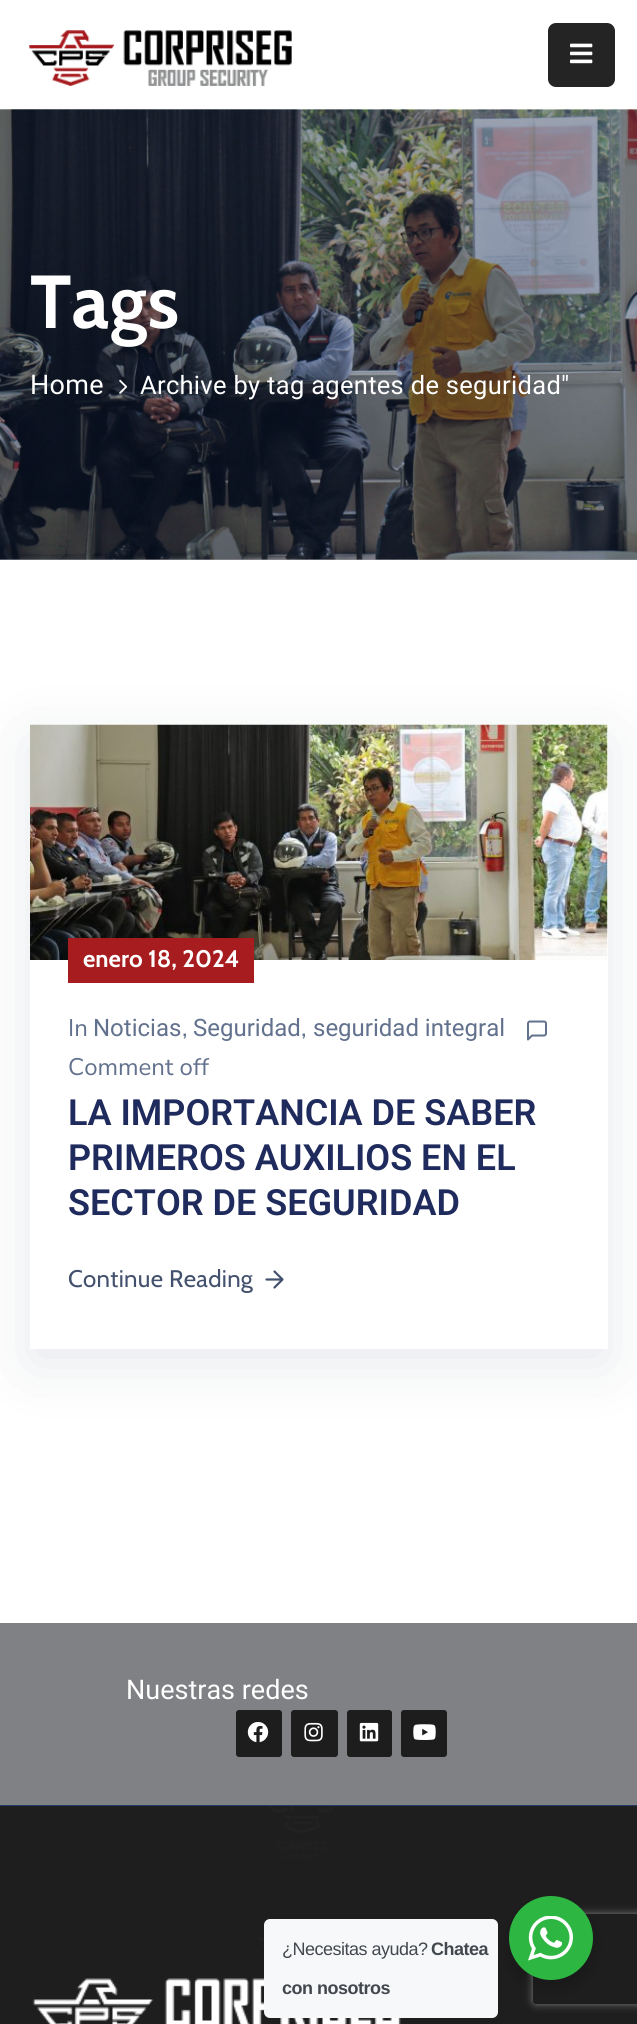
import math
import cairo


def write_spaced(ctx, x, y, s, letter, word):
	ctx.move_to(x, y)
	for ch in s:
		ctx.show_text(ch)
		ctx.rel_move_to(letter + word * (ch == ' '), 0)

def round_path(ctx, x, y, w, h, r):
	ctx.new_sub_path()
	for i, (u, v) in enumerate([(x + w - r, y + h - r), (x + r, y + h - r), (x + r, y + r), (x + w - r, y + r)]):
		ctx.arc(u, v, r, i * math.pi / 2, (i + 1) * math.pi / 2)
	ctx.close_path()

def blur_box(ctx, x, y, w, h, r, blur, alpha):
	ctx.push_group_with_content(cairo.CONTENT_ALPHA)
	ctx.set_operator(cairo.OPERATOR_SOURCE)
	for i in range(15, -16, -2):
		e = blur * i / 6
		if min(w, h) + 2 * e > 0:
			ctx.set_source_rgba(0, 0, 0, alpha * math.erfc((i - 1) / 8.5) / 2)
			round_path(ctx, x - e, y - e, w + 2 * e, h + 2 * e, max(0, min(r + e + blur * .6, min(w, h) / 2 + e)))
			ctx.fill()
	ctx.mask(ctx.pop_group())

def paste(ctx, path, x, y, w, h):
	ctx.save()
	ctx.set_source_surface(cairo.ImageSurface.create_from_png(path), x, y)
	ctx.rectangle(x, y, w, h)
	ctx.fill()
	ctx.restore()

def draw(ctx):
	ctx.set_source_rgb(1, 1, 1)
	ctx.paint()
	paste(ctx, 'media/1.png', 29, 30, 263, 56)
	ctx.set_source_rgb(0.141, 0.141, 0.141)
	round_path(ctx, 548, 23, 67, 64, 8)
	ctx.fill()
	paste(ctx, 'media/2.png', 570, 43, 23, 21)
	paste(ctx, 'media/3.png', 0, 109, 637, 451)
	paste(ctx, 'media/4.png', 0, 109, 637, 451)
	ctx.select_font_face('Cabin', cairo.FONT_SLANT_NORMAL, cairo.FONT_WEIGHT_BOLD)
	ctx.set_font_size(75)
	ctx.set_source_rgb(1, 1, 1)
	write_spaced(ctx, 30, 328, 'Tags', 0.3, 0)
	ctx.select_font_face('Roboto')
	ctx.set_font_size(27)
	write_spaced(ctx, 30, 394, 'Home', 0.3, 0)
	paste(ctx, 'media/5.png', 119, 379, 9, 15)
	ctx.set_font_size(25.5)
	write_spaced(ctx, 140, 394, 'Archive by tag agentes de seguridad"', 0.3, 0)
	ctx.save()
	ctx.set_fill_rule(cairo.FILL_RULE_EVEN_ODD)
	ctx.new_path()
	ctx.move_to(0, 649)
	ctx.line_to(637, 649)
	ctx.line_to(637, 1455)
	ctx.line_to(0, 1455)
	ctx.close_path()
	ctx.move_to(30, 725)
	ctx.line_to(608, 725)
	ctx.line_to(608, 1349)
	ctx.line_to(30, 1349)
	ctx.close_path()
	ctx.clip()
	ctx.set_source_rgb(0.024, 0.086, 0.227)
	blur_box(ctx, 30, 740, 578, 624, 0, 30, 0.1)
	ctx.restore()
	paste(ctx, 'media/6.png', 30, 724, 578, 236)
	ctx.set_source_rgb(0.655, 0.11, 0.118)
	ctx.rectangle(68, 938, 186, 45)
	ctx.fill()
	ctx.select_font_face('Cabin', cairo.FONT_SLANT_NORMAL, cairo.FONT_WEIGHT_BOLD)
	ctx.set_font_size(24)
	ctx.set_source_rgb(1, 1, 1)
	ctx.move_to(83, 967)
	ctx.show_text('enero 18, 2024')
	ctx.select_font_face('Nunito Sans')
	ctx.set_source_rgb(0.384, 0.443, 0.553)
	ctx.move_to(68, 1036)
	ctx.show_text('In')
	ctx.select_font_face('Roboto')
	ctx.move_to(93, 1036)
	ctx.show_text('Noticias')
	ctx.select_font_face('Nunito Sans')
	ctx.move_to(182, 1036)
	ctx.show_text('‚')
	ctx.select_font_face('Roboto')
	ctx.move_to(193, 1036)
	ctx.show_text('Seguridad')
	ctx.select_font_face('Nunito Sans')
	ctx.move_to(301, 1036)
	ctx.show_text('‚')
	ctx.select_font_face('Roboto')
	ctx.move_to(313, 1036)
	ctx.show_text('seguridad integral')
	paste(ctx, 'media/7.png', 527, 1020, 20, 21)
	ctx.select_font_face('Nunito Sans')
	ctx.move_to(68, 1075)
	ctx.show_text('Comment off')
	ctx.select_font_face('Roboto SemiBold')
	ctx.set_font_size(36)
	ctx.set_source_rgb(0.125, 0.169, 0.365)
	for x, y, s in [
		(68, 1125, 'LA IMPORTANCIA DE SABER'),
		(68, 1170, 'PRIMEROS AUXILIOS EN EL'),
		(68, 1215, 'SECTOR DE SEGURIDAD'),
	]:
		ctx.move_to(x, y)
		ctx.show_text(s)
	ctx.select_font_face('Cabin')
	ctx.set_font_size(24)
	ctx.set_source_rgb(0.259, 0.318, 0.427)
	write_spaced(ctx, 68, 1287, 'Continue Reading', 0.3, 0)
	ctx.new_path()
	ctx.move_to(266.5, 1279.5)
	ctx.line_to(282.5, 1279.5)
	ctx.move_to(274.5, 1271.5)
	ctx.line_to(282.5, 1279.5)
	ctx.line_to(274.5, 1287.5)
	ctx.set_line_width(2.2)
	ctx.set_line_cap(cairo.LINE_CAP_ROUND)
	ctx.set_line_join(cairo.LINE_JOIN_ROUND)
	ctx.stroke()
	ctx.set_source_rgb(0.502, 0.506, 0.518)
	ctx.rectangle(0, 1623, 637, 182)
	ctx.fill()
	ctx.set_source_rgb(0.149, 0.227, 0.396)
	ctx.rectangle(0, 1805, 637, 1)
	ctx.fill()
	ctx.select_font_face('Roboto')
	ctx.set_font_size(27)
	ctx.set_source_rgb(1, 1, 1)
	ctx.move_to(126, 1699)
	ctx.show_text('Nuestras redes')
	ctx.set_source_rgb(0.114, 0.114, 0.114)
	round_path(ctx, 236, 1710, 46, 47, 3)
	ctx.fill()
	paste(ctx, 'media/8.png', 247, 1722, 22, 21)
	round_path(ctx, 291, 1710, 47, 47, 3)
	ctx.fill()
	paste(ctx, 'media/9.png', 304, 1722, 19, 20)
	round_path(ctx, 347, 1710, 45, 47, 3)
	ctx.fill()
	paste(ctx, 'media/10.png', 359, 1722, 20, 20)
	round_path(ctx, 401, 1710, 46, 47, 3)
	ctx.fill()
	paste(ctx, 'media/11.png', 413, 1724, 23, 16)
	paste(ctx, 'media/12.png', 0, 1806, 637, 218)
	paste(ctx, 'media/13.png', 32, 1978, 369, 46)
	ctx.set_source_rgb(0, 0, 0)
	blur_box(ctx, 506, 1902, 90, 90, 45, 6, 0.14)
	ctx.set_source_rgb(0.961, 0.969, 0.976)
	round_path(ctx, 264, 1919, 234, 99, 6)
	ctx.fill()
	ctx.select_font_face('Liberation Sans')
	ctx.set_font_size(18)
	ctx.set_source_rgb(0.263, 0.278, 0.306)
	write_spaced(ctx, 282, 1955, '¿Necesitas ayuda?', -0.5, 0)
	ctx.select_font_face('Liberation Sans', cairo.FONT_SLANT_NORMAL, cairo.FONT_WEIGHT_BOLD)
	write_spaced(ctx, 431, 1955, 'Chatea', -0.5, 0)
	write_spaced(ctx, 282, 1994, 'con nosotros', -0.5, 0)
	ctx.save()
	ctx.set_fill_rule(cairo.FILL_RULE_EVEN_ODD)
	ctx.new_path()
	ctx.move_to(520, 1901)
	ctx.line_to(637, 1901)
	ctx.line_to(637, 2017)
	ctx.line_to(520, 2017)
	ctx.close_path()
	ctx.move_to(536, 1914)
	ctx.line_to(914, 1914)
	ctx.curve_to(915.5, 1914, 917, 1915.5, 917, 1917)
	ctx.line_to(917, 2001)
	ctx.curve_to(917, 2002.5, 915.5, 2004, 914, 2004)
	ctx.line_to(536, 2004)
	ctx.curve_to(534.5, 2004, 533, 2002.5, 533, 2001)
	ctx.line_to(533, 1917)
	ctx.curve_to(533, 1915.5, 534.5, 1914, 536, 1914)
	ctx.close_path()
	ctx.clip()
	ctx.set_source_rgb(0.502, 0.502, 0.502)
	blur_box(ctx, 533, 1914, 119, 90, 3, 4, 1)
	ctx.restore()
	ctx.set_source_rgb(0.176, 0.718, 0.259)
	ctx.arc(551, 1938, 42, 0, 2 * math.pi)
	ctx.fill()
	paste(ctx, 'media/14.png', 528, 1916, 45, 45)


surface = cairo.ImageSurface(cairo.FORMAT_RGB24, 637, 2024)
ctx = cairo.Context(surface)
options = cairo.FontOptions()
options.set_hint_metrics(cairo.HINT_METRICS_OFF)
options.set_hint_style(cairo.HINT_STYLE_NONE)
ctx.set_font_options(options)
ctx.set_miter_limit(4)
draw(ctx)
surface.write_to_png('image.png')
